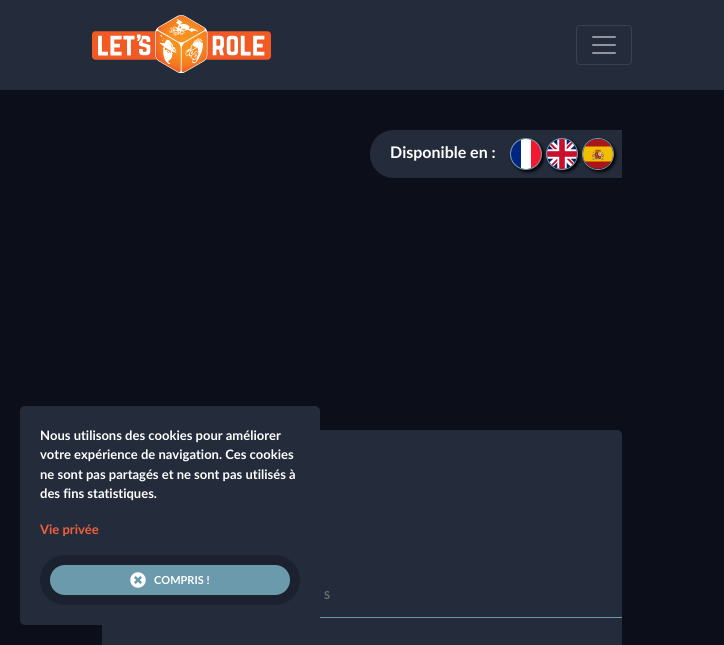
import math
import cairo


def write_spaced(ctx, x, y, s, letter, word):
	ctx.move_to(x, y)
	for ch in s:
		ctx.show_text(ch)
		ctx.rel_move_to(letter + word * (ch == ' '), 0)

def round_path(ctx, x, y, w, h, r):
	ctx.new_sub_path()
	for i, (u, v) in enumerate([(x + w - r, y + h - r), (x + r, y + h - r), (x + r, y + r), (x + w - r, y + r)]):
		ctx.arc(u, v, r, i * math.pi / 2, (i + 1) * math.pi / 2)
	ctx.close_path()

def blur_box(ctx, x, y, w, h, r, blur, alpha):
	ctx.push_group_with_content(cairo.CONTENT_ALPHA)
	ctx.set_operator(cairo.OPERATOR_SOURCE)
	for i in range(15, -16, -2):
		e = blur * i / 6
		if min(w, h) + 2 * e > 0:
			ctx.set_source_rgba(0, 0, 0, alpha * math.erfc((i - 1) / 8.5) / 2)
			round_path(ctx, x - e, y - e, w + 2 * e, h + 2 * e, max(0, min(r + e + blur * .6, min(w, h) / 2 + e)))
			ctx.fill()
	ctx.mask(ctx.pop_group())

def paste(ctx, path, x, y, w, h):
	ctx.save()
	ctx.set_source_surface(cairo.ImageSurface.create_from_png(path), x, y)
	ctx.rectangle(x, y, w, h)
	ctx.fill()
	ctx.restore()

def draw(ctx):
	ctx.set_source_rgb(0.047, 0.055, 0.102)
	ctx.paint()
	ctx.set_source_rgb(0.141, 0.169, 0.231)
	ctx.rectangle(0, 0, 724, 90)
	ctx.fill()
	paste(ctx, 'media/1.png', 92, 15, 179, 58)
	round_path(ctx, 576.5, 25.5, 55, 39, 3.5)
	ctx.set_source_rgb(0.227, 0.251, 0.31)
	ctx.set_line_width(1)
	ctx.stroke()
	paste(ctx, 'media/2.png', 592, 36, 24, 18)
	ctx.set_source_rgb(0.141, 0.169, 0.231)
	round_path(ctx, 102, 430, 520, 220, 5)
	ctx.fill()
	round_path(ctx, 20, 406, 300, 219, 5)
	ctx.fill()
	ctx.select_font_face('Lato', cairo.FONT_SLANT_NORMAL, cairo.FONT_WEIGHT_BOLD)
	ctx.set_font_size(13)
	ctx.set_source_rgb(1, 1, 1)
	for x, y, s in [
		(40, 440, 'Nous utilisons des cookies pour améliorer'),
		(40, 459, 'votre expérience de navigation. Ces cookies'),
		(40, 479, 'ne sont pas partagés et ne sont pas utilisés à'),
		(40, 498, 'des fins statistiques.'),
	]:
		ctx.move_to(x, y)
		ctx.show_text(s)
	ctx.set_source_rgb(0.937, 0.38, 0.235)
	ctx.move_to(40, 534)
	ctx.show_text('Vie privée')
	ctx.set_source_rgb(0.42, 0.604, 0.678)
	round_path(ctx, 45, 560, 250, 40, 20)
	ctx.fill_preserve()
	ctx.set_source_rgb(0.11, 0.129, 0.184)
	ctx.set_line_width(10)
	ctx.stroke()
	paste(ctx, 'media/3.png', 130, 572, 16, 16)
	ctx.set_font_size(11)
	ctx.set_source_rgb(1, 1, 1)
	ctx.move_to(154, 584)
	ctx.show_text('COMPRIS !')
	ctx.set_source_rgb(0.141, 0.169, 0.231)
	ctx.new_path()
	ctx.move_to(394, 130)
	ctx.line_to(622, 130)
	ctx.line_to(622, 178)
	ctx.line_to(394, 178)
	ctx.curve_to(380.5, 178, 370, 167.5, 370, 154)
	ctx.curve_to(370, 140.5, 380.5, 130, 394, 130)
	ctx.close_path()
	ctx.fill()
	ctx.set_source_rgb(0, 0, 0)
	blur_box(ctx, 512, 140, 32, 32, 16, 1.5, 1)
	blur_box(ctx, 548, 140, 32, 32, 16, 1.5, 1)
	blur_box(ctx, 584, 140, 32, 32, 16, 1.5, 1)
	ctx.arc(526, 154, 15.5, 0, 2 * math.pi)
	ctx.set_source_rgb(0.42, 0.604, 0.678)
	ctx.set_line_width(1)
	ctx.stroke()
	ctx.arc(562, 154, 15.5, 0, 2 * math.pi)
	ctx.stroke()
	ctx.arc(598, 154, 15.5, 0, 2 * math.pi)
	ctx.stroke()
	ctx.set_source_rgb(1, 1, 1)
	ctx.arc(526, 154, 15, 0, 2 * math.pi)
	ctx.fill()
	paste(ctx, 'media/4.png', 547, 139, 30, 30)
	paste(ctx, 'media/5.png', 583, 139, 30, 30)
	ctx.set_font_size(16)
	ctx.move_to(390, 158)
	ctx.show_text('Disponible en :')
	ctx.save()
	round_path(ctx, 511, 139, 30, 30, 15)
	ctx.clip()
	ctx.set_source_rgb(0, 0.149, 0.498)
	ctx.rectangle(511, 140, 10, 28)
	ctx.fill()
	ctx.set_source_rgb(0.953, 0.094, 0.188)
	ctx.rectangle(531, 140, 10, 28)
	ctx.fill()
	ctx.restore()
	ctx.set_source_rgb(0.42, 0.604, 0.678)
	ctx.rectangle(320, 617, 302, 1)
	ctx.fill()
	ctx.set_font_size(11)
	ctx.set_source_rgb(0.392, 0.447, 0.459)
	write_spaced(ctx, 324, 599, 'S', 2, 0)


surface = cairo.ImageSurface(cairo.FORMAT_RGB24, 724, 645)
ctx = cairo.Context(surface)
options = cairo.FontOptions()
options.set_hint_metrics(cairo.HINT_METRICS_OFF)
options.set_hint_style(cairo.HINT_STYLE_NONE)
ctx.set_font_options(options)
ctx.set_miter_limit(4)
draw(ctx)
surface.write_to_png('image.png')
